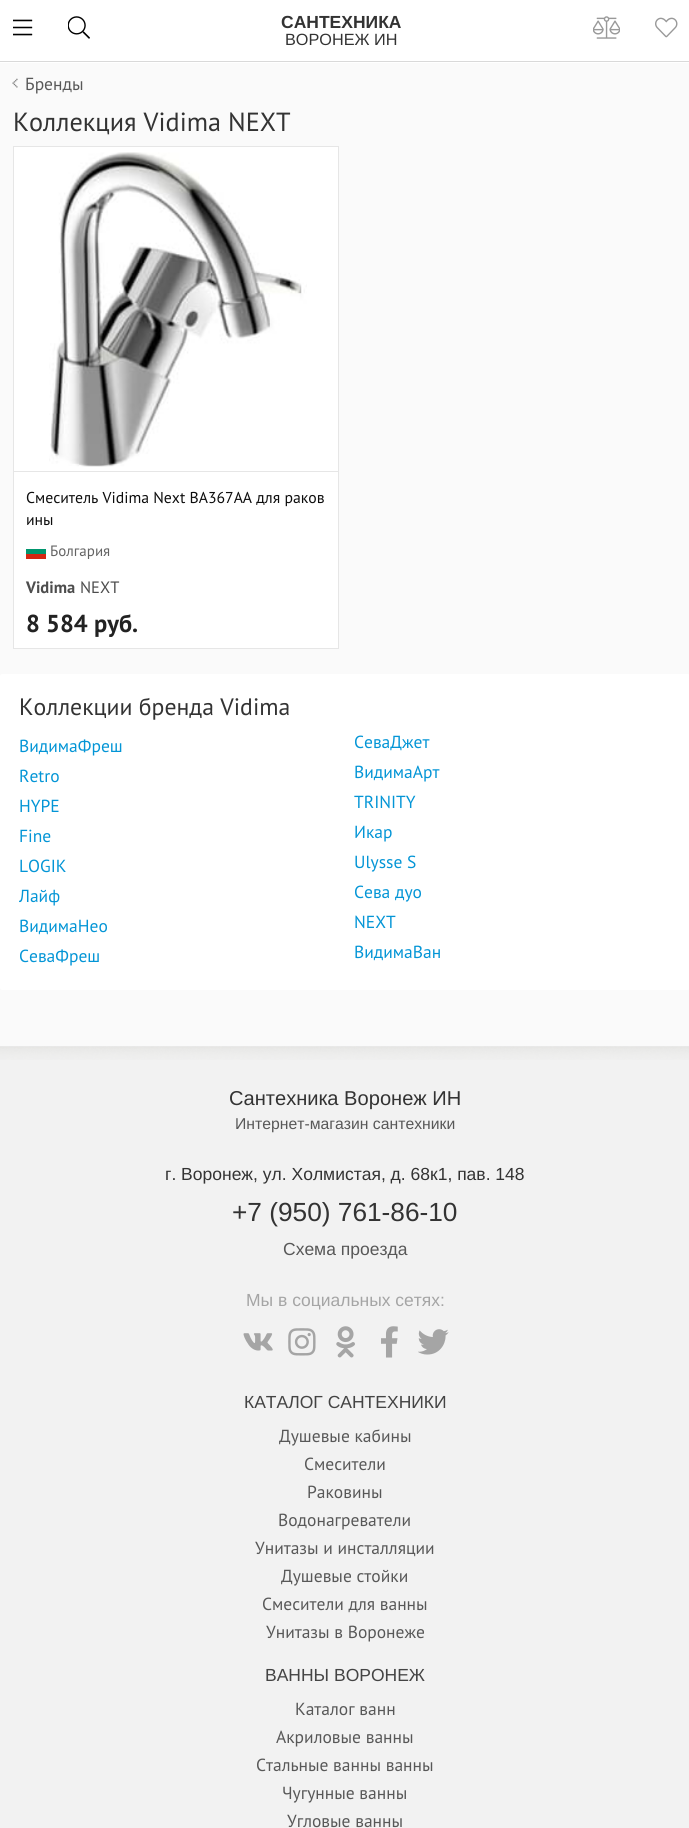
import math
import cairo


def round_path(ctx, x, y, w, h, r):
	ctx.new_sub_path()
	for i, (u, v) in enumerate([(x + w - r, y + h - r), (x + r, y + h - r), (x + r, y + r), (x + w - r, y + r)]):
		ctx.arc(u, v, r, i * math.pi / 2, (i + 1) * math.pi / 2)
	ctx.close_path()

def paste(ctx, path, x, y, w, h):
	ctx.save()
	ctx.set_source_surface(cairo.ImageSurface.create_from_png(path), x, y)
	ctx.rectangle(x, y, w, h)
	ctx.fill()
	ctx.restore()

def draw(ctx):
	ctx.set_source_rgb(1, 1, 1)
	ctx.paint()
	ctx.set_source_rgb(0.851, 0.851, 0.851)
	ctx.rectangle(0, 61, 689, 1)
	ctx.fill()
	paste(ctx, 'media/1.png', 13, 19, 20, 17)
	paste(ctx, 'media/2.png', 68, 16, 22, 23)
	ctx.select_font_face('Liberation Sans', cairo.FONT_SLANT_NORMAL, cairo.FONT_WEIGHT_BOLD)
	ctx.set_font_size(17.5)
	ctx.set_source_rgb(0.2, 0.2, 0.2)
	ctx.move_to(281, 28)
	ctx.show_text('САНТЕХНИКА')
	ctx.select_font_face('Liberation Sans')
	ctx.set_font_size(16.25)
	ctx.move_to(285, 45)
	ctx.show_text('ВОРОНЕЖ ИН')
	paste(ctx, 'media/3.png', 593, 16, 27, 23)
	paste(ctx, 'media/4.png', 655, 17, 23, 21)
	ctx.set_source_rgb(0.98, 0.98, 0.98)
	ctx.rectangle(0, 63, 689, 983)
	ctx.fill()
	paste(ctx, 'media/5.png', 12, 78, 6, 10)
	ctx.select_font_face('PT Sans')
	ctx.set_font_size(17.5)
	ctx.set_source_rgb(0.345, 0.345, 0.345)
	ctx.move_to(25, 90)
	ctx.show_text('Бренды')
	ctx.set_font_size(26.25)
	ctx.set_source_rgb(0.2, 0.2, 0.2)
	ctx.move_to(13, 131)
	ctx.show_text('Коллекция Vidima NEXT')
	ctx.set_source_rgb(1, 1, 1)
	ctx.rectangle(13.5, 146.5, 325, 502)
	ctx.fill_preserve()
	ctx.set_source_rgb(0.902, 0.902, 0.902)
	ctx.set_line_width(1)
	ctx.stroke()
	ctx.rectangle(14, 471, 324, 1)
	ctx.fill()
	paste(ctx, 'media/6.png', 49, 152, 258, 315)
	ctx.set_font_size(15.75)
	ctx.set_source_rgb(0.051, 0.051, 0.051)
	ctx.move_to(26, 503)
	ctx.show_text('Смеситель Vidima Next BA367AA для раков')
	ctx.move_to(26, 525)
	ctx.show_text('ины')
	ctx.set_source_rgb(0.839, 0.149, 0.071)
	ctx.rectangle(26, 554, 20, 5)
	ctx.fill()
	ctx.set_source_rgb(0, 0.588, 0.431)
	ctx.rectangle(26, 549, 20, 5)
	ctx.fill()
	ctx.set_font_size(15)
	ctx.set_source_rgb(0.388, 0.388, 0.388)
	ctx.move_to(50, 556)
	ctx.show_text('Болгария')
	ctx.select_font_face('PT Sans', cairo.FONT_SLANT_NORMAL, cairo.FONT_WEIGHT_BOLD)
	ctx.set_font_size(16.5)
	ctx.set_source_rgb(0.302, 0.302, 0.302)
	ctx.move_to(26, 593)
	ctx.show_text('Vidima')
	ctx.select_font_face('PT Sans')
	ctx.move_to(80, 593)
	ctx.show_text('NEXT')
	ctx.select_font_face('PT Sans', cairo.FONT_SLANT_NORMAL, cairo.FONT_WEIGHT_BOLD)
	ctx.set_font_size(24.5)
	ctx.set_source_rgb(0.133, 0.133, 0.133)
	ctx.move_to(26, 632)
	ctx.show_text('8 584 руб.')
	ctx.set_source_rgb(1, 1, 1)
	round_path(ctx, 0, 674, 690, 316, 2.5)
	ctx.fill()
	ctx.select_font_face('PT Sans')
	ctx.set_font_size(23.75)
	ctx.set_source_rgb(0.2, 0.2, 0.2)
	ctx.move_to(19, 715)
	ctx.show_text('Коллекции бренда Vidima')
	ctx.set_font_size(17.5)
	ctx.set_source_rgb(0.012, 0.584, 0.839)
	for x, y, s in [
		(19, 752, 'ВидимаФреш'),
		(354, 748, 'СеваДжет'),
		(19, 782, 'Retro'),
		(354, 778, 'ВидимаАрт'),
		(19, 812, 'HYPE'),
		(354, 808, 'TRINITY'),
		(19, 842, 'Fine'),
		(354, 838, 'Икар'),
		(19, 872, 'LOGIK'),
		(354, 868, 'Ulysse S'),
		(19, 902, 'Лайф'),
		(354, 898, 'Сева дуо'),
		(19, 932, 'ВидимаНео'),
		(354, 928, 'NEXT'),
		(19, 962, 'СеваФреш'),
		(354, 958, 'ВидимаВан'),
	]:
		ctx.move_to(x, y)
		ctx.show_text(s)
	ctx.set_source_rgb(0.949, 0.949, 0.949)
	ctx.rectangle(0, 1046, 689, 782)
	ctx.fill()
	paste(ctx, 'media/7.png', 0, 1046, 689, 14)
	ctx.select_font_face('Liberation Sans')
	ctx.set_font_size(20.1)
	ctx.set_source_rgb(0.2, 0.2, 0.2)
	ctx.move_to(229, 1105)
	ctx.show_text('Сантехника Воронеж ИН')
	ctx.set_font_size(15.75)
	ctx.set_source_rgb(0.345, 0.345, 0.345)
	ctx.move_to(235, 1129)
	ctx.show_text('Интернет-магазин сантехники')
	ctx.set_font_size(17.5)
	ctx.set_source_rgb(0.2, 0.2, 0.2)
	ctx.move_to(165, 1180)
	ctx.show_text('г. Воронеж, ул. Холмистая, д. 68к1, пав. 148')
	ctx.set_font_size(26.25)
	ctx.move_to(232, 1221)
	ctx.show_text('+7 (950) 761-86-10')
	ctx.set_font_size(17.5)
	ctx.set_source_rgb(0.345, 0.345, 0.345)
	ctx.move_to(283, 1255)
	ctx.show_text('Схема проезда')
	ctx.set_source_rgb(0.647, 0.647, 0.647)
	ctx.move_to(246, 1306)
	ctx.show_text('Мы в социальных сетях:')
	paste(ctx, 'media/8.png', 243, 1333, 30, 18)
	paste(ctx, 'media/9.png', 288, 1328, 28, 28)
	paste(ctx, 'media/10.png', 336, 1326, 19, 32)
	paste(ctx, 'media/11.png', 381, 1326, 17, 32)
	paste(ctx, 'media/12.png', 418, 1329, 31, 26)
	ctx.set_source_rgb(0.267, 0.267, 0.267)
	ctx.move_to(244, 1408)
	ctx.show_text('КАТАЛОГ САНТЕХНИКИ')
	ctx.select_font_face('PT Sans')
	ctx.set_source_rgb(0.345, 0.345, 0.345)
	for x, y, s in [
		(279, 1442, 'Душевые кабины'),
		(304, 1470, 'Смесители'),
		(307, 1498, 'Раковины'),
		(278, 1526, 'Водонагреватели'),
		(255, 1554, 'Унитазы и инсталляции'),
		(281, 1582, 'Душевые стойки'),
		(262, 1610, 'Смесители для ванны'),
		(266, 1638, 'Унитазы в Воронеже'),
	]:
		ctx.move_to(x, y)
		ctx.show_text(s)
	ctx.select_font_face('Liberation Sans')
	ctx.set_source_rgb(0.267, 0.267, 0.267)
	ctx.move_to(265, 1681)
	ctx.show_text('ВАННЫ ВОРОНЕЖ')
	ctx.select_font_face('PT Sans')
	ctx.set_source_rgb(0.345, 0.345, 0.345)
	for x, y, s in [
		(295, 1715, 'Каталог ванн'),
		(276, 1743, 'Акриловые ванны'),
		(256, 1771, 'Стальные ванны ванны'),
		(282, 1799, 'Чугунные ванны'),
		(287, 1827, 'Угловые ванны'),
	]:
		ctx.move_to(x, y)
		ctx.show_text(s)


surface = cairo.ImageSurface(cairo.FORMAT_RGB24, 689, 1828)
ctx = cairo.Context(surface)
options = cairo.FontOptions()
options.set_hint_metrics(cairo.HINT_METRICS_OFF)
options.set_hint_style(cairo.HINT_STYLE_NONE)
ctx.set_font_options(options)
ctx.set_miter_limit(4)
draw(ctx)
surface.write_to_png('image.png')
